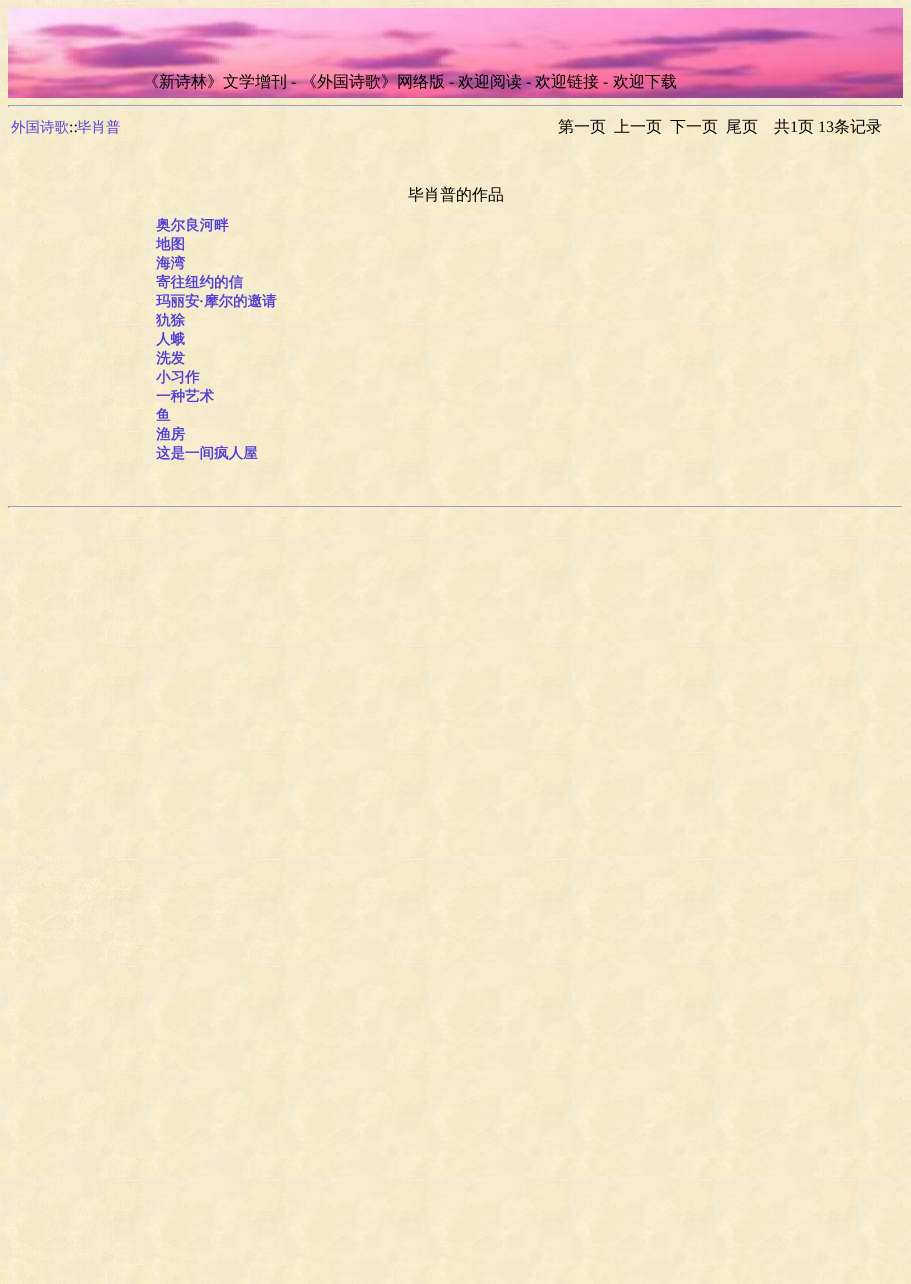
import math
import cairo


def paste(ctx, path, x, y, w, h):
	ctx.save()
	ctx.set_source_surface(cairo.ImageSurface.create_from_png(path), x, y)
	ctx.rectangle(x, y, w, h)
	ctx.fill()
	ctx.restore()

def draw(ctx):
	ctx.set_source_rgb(1, 1, 1)
	ctx.paint()
	paste(ctx, 'media/1.png', 0, 0, 911, 1284)
	paste(ctx, 'media/2.png', 8, 8, 895, 90)
	ctx.select_font_face('WenQuanYi Zen Hei Medium')
	ctx.set_font_size(16)
	ctx.set_source_rgb(0, 0, 0)
	ctx.move_to(143, 87)
	ctx.show_text('《新诗林》文学增刊')
	ctx.select_font_face('Liberation Serif')
	ctx.move_to(291, 87)
	ctx.show_text('-')
	ctx.select_font_face('WenQuanYi Zen Hei Medium')
	ctx.move_to(301, 87)
	ctx.show_text('《外国诗歌》网络版')
	ctx.select_font_face('Liberation Serif')
	ctx.move_to(449, 87)
	ctx.show_text('-')
	ctx.select_font_face('WenQuanYi Zen Hei Medium')
	ctx.move_to(458, 87)
	ctx.show_text('欢迎阅读')
	ctx.select_font_face('Liberation Serif')
	ctx.move_to(526, 87)
	ctx.show_text('-')
	ctx.select_font_face('WenQuanYi Zen Hei Medium')
	ctx.move_to(535, 87)
	ctx.show_text('欢迎链接')
	ctx.select_font_face('Liberation Serif')
	ctx.move_to(603, 87)
	ctx.show_text('-')
	ctx.select_font_face('WenQuanYi Zen Hei Medium')
	ctx.move_to(613, 87)
	ctx.show_text('欢迎下载')
	ctx.set_source_rgb(0.624, 0.624, 0.624)
	ctx.rectangle(8, 105, 895, 1)
	ctx.fill()
	ctx.set_source_rgb(0.933, 0.933, 0.933)
	ctx.rectangle(902, 105, 1, 2)
	ctx.rectangle(8, 106, 895, 1)
	ctx.fill()
	ctx.set_source_rgb(0.624, 0.624, 0.624)
	ctx.rectangle(8, 105, 1, 2)
	ctx.fill()
	ctx.set_font_size(14.5)
	ctx.set_source_rgb(0.314, 0.251, 0.835)
	ctx.move_to(11, 132)
	ctx.show_text('外国诗歌')
	ctx.select_font_face('Liberation Serif')
	ctx.set_font_size(16)
	ctx.set_source_rgb(0, 0, 0)
	ctx.move_to(69, 132)
	ctx.show_text('::')
	ctx.select_font_face('WenQuanYi Zen Hei Medium')
	ctx.set_font_size(14.5)
	ctx.set_source_rgb(0.314, 0.251, 0.835)
	ctx.move_to(77, 132)
	ctx.show_text('毕肖普')
	ctx.set_font_size(16)
	ctx.set_source_rgb(0, 0, 0)
	for x, y, s in [
		(558, 132, '第一页'),
		(614, 132, '上一页'),
		(670, 132, '下一页'),
		(726, 132, '尾页'),
		(774, 132, '共'),
	]:
		ctx.move_to(x, y)
		ctx.show_text(s)
	ctx.select_font_face('Liberation Serif')
	ctx.move_to(790, 132)
	ctx.show_text('1')
	ctx.select_font_face('WenQuanYi Zen Hei Medium')
	ctx.move_to(798, 132)
	ctx.show_text('页')
	ctx.select_font_face('Liberation Serif')
	ctx.move_to(818, 132)
	ctx.show_text('13')
	ctx.select_font_face('WenQuanYi Zen Hei Medium')
	ctx.move_to(834, 132)
	ctx.show_text('条记录')
	ctx.move_to(408, 200)
	ctx.show_text('毕肖普的作品')
	ctx.select_font_face('WenQuanYi Zen Hei', cairo.FONT_SLANT_NORMAL, cairo.FONT_WEIGHT_BOLD)
	ctx.set_font_size(14.5)
	ctx.set_source_rgb(0.314, 0.251, 0.835)
	for x, y, s in [
		(156, 230, '奥尔良河畔'),
		(156, 249, '地图'),
		(156, 268, '海湾'),
		(156, 287, '寄往纽约的信'),
		(156, 306, '玛丽安'),
	]:
		ctx.move_to(x, y)
		ctx.show_text(s)
	ctx.select_font_face('Liberation Serif', cairo.FONT_SLANT_NORMAL, cairo.FONT_WEIGHT_BOLD)
	ctx.move_to(199, 306)
	ctx.show_text('·')
	ctx.select_font_face('WenQuanYi Zen Hei', cairo.FONT_SLANT_NORMAL, cairo.FONT_WEIGHT_BOLD)
	for x, y, s in [
		(204, 306, '摩尔的邀请'),
		(156, 325, '犰狳'),
		(156, 344, '人蛾'),
		(156, 363, '洗发'),
		(156, 382, '小习作'),
		(156, 401, '一种艺术'),
		(156, 420, '鱼'),
		(156, 439, '渔房'),
		(156, 458, '这是一间疯人屋'),
	]:
		ctx.move_to(x, y)
		ctx.show_text(s)
	ctx.set_source_rgb(0.624, 0.624, 0.624)
	ctx.rectangle(8, 506, 895, 1)
	ctx.fill()
	ctx.set_source_rgb(0.933, 0.933, 0.933)
	ctx.rectangle(902, 506, 1, 2)
	ctx.rectangle(8, 507, 895, 1)
	ctx.fill()
	ctx.set_source_rgb(0.624, 0.624, 0.624)
	ctx.rectangle(8, 506, 1, 2)
	ctx.fill()


surface = cairo.ImageSurface(cairo.FORMAT_RGB24, 911, 1284)
ctx = cairo.Context(surface)
options = cairo.FontOptions()
options.set_hint_metrics(cairo.HINT_METRICS_OFF)
options.set_hint_style(cairo.HINT_STYLE_NONE)
ctx.set_font_options(options)
ctx.set_miter_limit(4)
draw(ctx)
surface.write_to_png('image.png')
